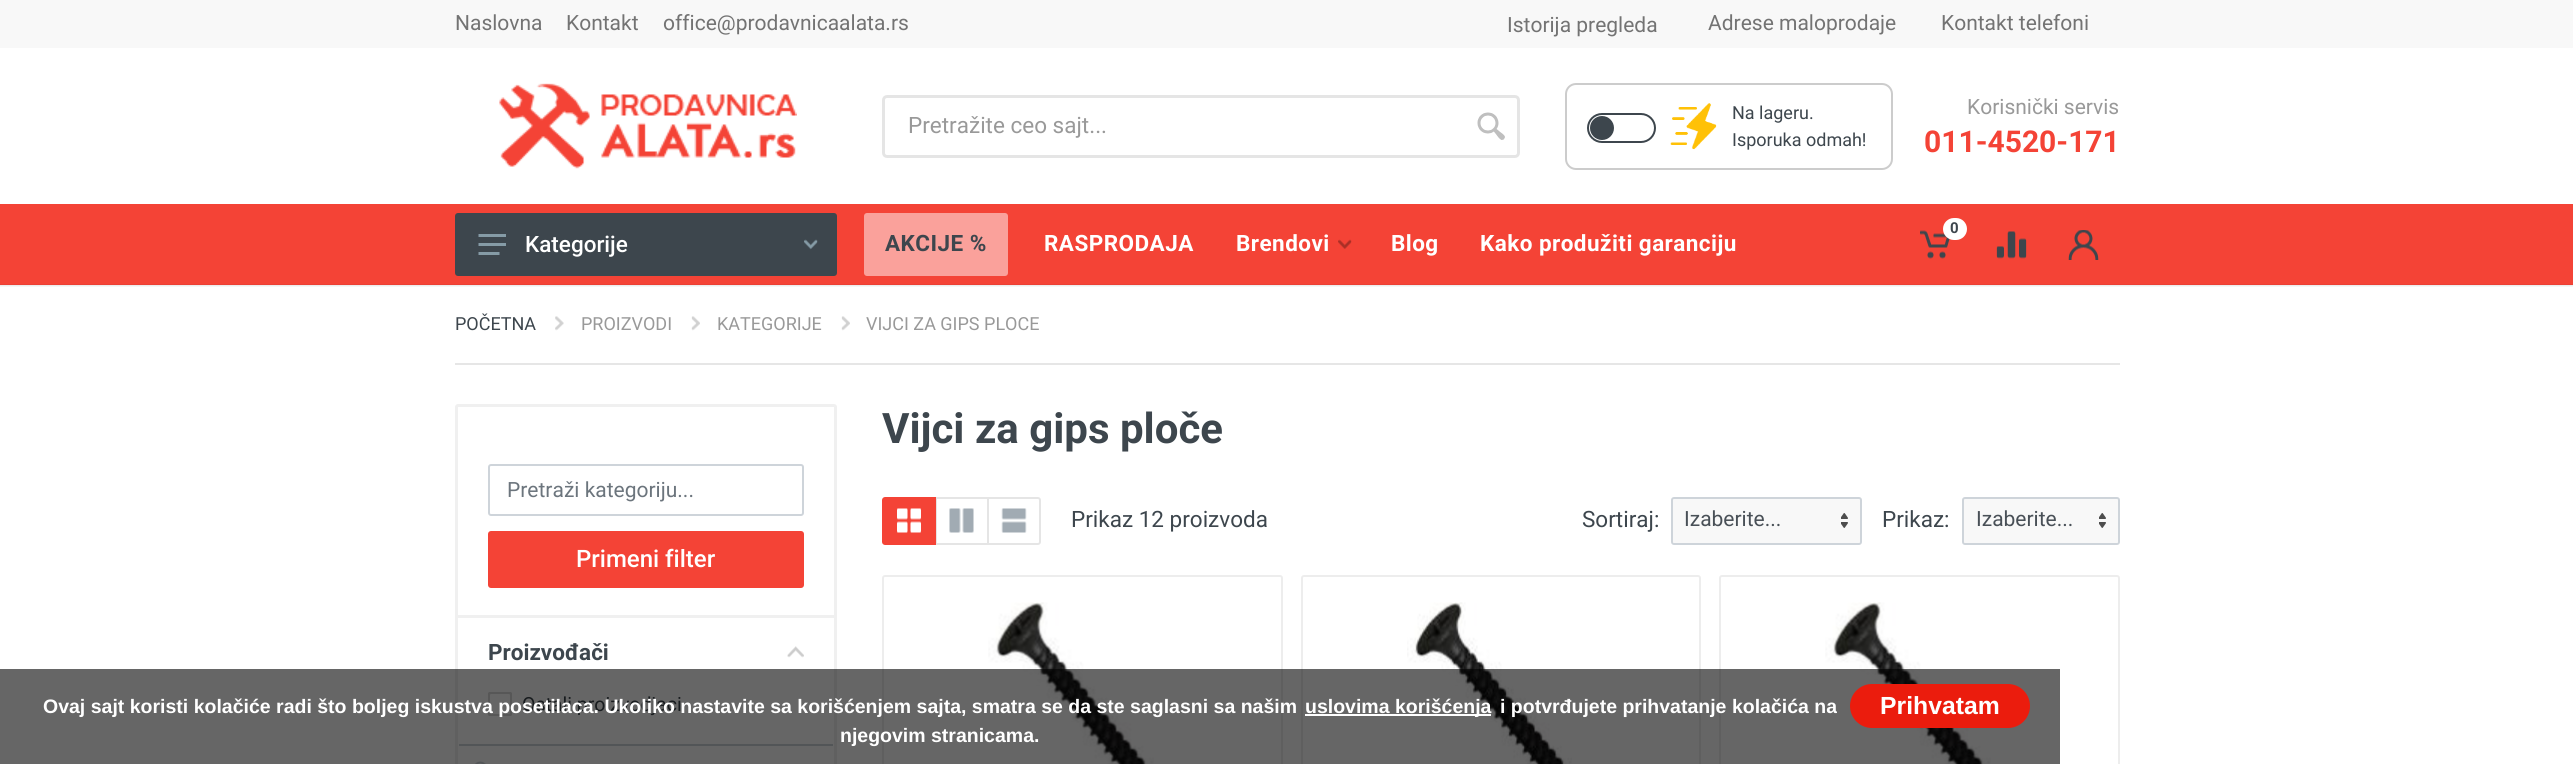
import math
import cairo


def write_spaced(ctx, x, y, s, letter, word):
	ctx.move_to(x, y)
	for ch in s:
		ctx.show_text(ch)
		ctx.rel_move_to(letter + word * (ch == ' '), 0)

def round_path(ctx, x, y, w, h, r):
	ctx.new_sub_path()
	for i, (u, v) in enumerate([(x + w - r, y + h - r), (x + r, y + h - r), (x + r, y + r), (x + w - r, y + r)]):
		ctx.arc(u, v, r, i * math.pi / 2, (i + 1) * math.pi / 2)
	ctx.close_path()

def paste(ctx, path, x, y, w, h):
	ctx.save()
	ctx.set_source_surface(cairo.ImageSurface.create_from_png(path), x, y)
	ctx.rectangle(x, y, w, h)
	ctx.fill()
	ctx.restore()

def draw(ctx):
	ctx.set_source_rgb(1, 1, 1)
	ctx.paint()
	ctx.set_source_rgb(0.969, 0.969, 0.969)
	ctx.rectangle(0, 0, 2573, 48)
	ctx.fill()
	ctx.select_font_face('Roboto')
	ctx.set_font_size(21)
	ctx.set_source_rgb(0.451, 0.451, 0.451)
	for x, y, s in [
		(455, 30, 'Naslovna'),
		(566, 30, 'Kontakt'),
		(663, 30, 'office@prodavnicaalata.rs'),
		(1507, 32, 'Istorija pregleda'),
		(1708, 30, 'Adrese maloprodaje'),
		(1941, 30, 'Kontakt telefoni'),
	]:
		ctx.move_to(x, y)
		ctx.show_text(s)
	paste(ctx, 'media/1.png', 499, 83, 298, 86)
	paste(ctx, 'media/2.png', 1477, 112, 28, 28)
	round_path(ctx, 883.5, 96.5, 635, 60, 3.5)
	ctx.set_source_rgb(0.898, 0.898, 0.898)
	ctx.set_line_width(3)
	ctx.stroke()
	ctx.set_font_size(22.5)
	ctx.set_source_rgb(0.6, 0.6, 0.6)
	ctx.move_to(908, 133)
	ctx.show_text('Pretražite ceo sajt...')
	round_path(ctx, 1566, 84, 326, 85, 10)
	ctx.set_source_rgb(0.8, 0.8, 0.8)
	ctx.set_line_width(2)
	ctx.stroke()
	round_path(ctx, 1588, 114, 67, 28, 14)
	ctx.set_source_rgb(0.239, 0.275, 0.302)
	ctx.stroke()
	ctx.arc(1602, 128, 12, 0, 2 * math.pi)
	ctx.fill()
	paste(ctx, 'media/3.png', 1670, 103, 47, 47)
	ctx.set_font_size(18)
	ctx.move_to(1732, 119)
	ctx.show_text('Na lageru.')
	ctx.move_to(1732, 146)
	ctx.show_text('Isporuka odmah!')
	ctx.set_font_size(21)
	ctx.set_source_rgb(0.6, 0.6, 0.6)
	ctx.move_to(1967, 114)
	ctx.show_text('Korisnički servis')
	ctx.select_font_face('Roboto', cairo.FONT_SLANT_NORMAL, cairo.FONT_WEIGHT_BOLD)
	ctx.set_font_size(30)
	ctx.set_source_rgb(0.957, 0.263, 0.212)
	ctx.move_to(1924, 152)
	ctx.show_text('011-4520-171')
	ctx.set_source_rgb(0.961, 0.961, 0.961)
	ctx.rectangle(0, 286, 2573, 1)
	ctx.fill()
	ctx.set_source_rgb(0.922, 0.922, 0.922)
	ctx.rectangle(0, 285, 2573, 1)
	ctx.fill()
	ctx.set_source_rgb(0.957, 0.263, 0.212)
	ctx.rectangle(0, 204, 2573, 80)
	ctx.fill()
	ctx.set_source_rgb(0.918, 0.251, 0.204)
	ctx.rectangle(0, 284, 2573, 1)
	ctx.fill()
	paste(ctx, 'media/4.png', 1920, 230, 30, 29)
	ctx.set_source_rgb(1, 1, 1)
	round_path(ctx, 1943, 218, 24, 22, 11)
	ctx.fill()
	ctx.set_font_size(15)
	ctx.set_source_rgb(0.239, 0.275, 0.302)
	ctx.move_to(1950, 233)
	ctx.show_text('0')
	paste(ctx, 'media/5.png', 1996, 231, 31, 28)
	paste(ctx, 'media/6.png', 2068, 230, 31, 30)
	round_path(ctx, 455, 213, 382, 63, 3)
	ctx.fill()
	paste(ctx, 'media/7.png', 478, 234, 28, 21)
	ctx.select_font_face('Roboto Medium')
	ctx.set_font_size(22.5)
	ctx.set_source_rgb(1, 1, 1)
	ctx.move_to(525, 252)
	ctx.show_text('Kategorije')
	paste(ctx, 'media/8.png', 804, 239, 14, 11)
	ctx.set_source_rgb(0.98, 0.631, 0.608)
	round_path(ctx, 864, 213, 144, 63, 3)
	ctx.fill()
	ctx.select_font_face('Roboto', cairo.FONT_SLANT_NORMAL, cairo.FONT_WEIGHT_BOLD)
	ctx.set_source_rgb(0.239, 0.275, 0.302)
	write_spaced(ctx, 885, 251, 'AKCIJE %', 0.45, 0)
	ctx.set_source_rgb(1, 1, 1)
	write_spaced(ctx, 1044, 251, 'RASPRODAJA', 0.45, 0)
	write_spaced(ctx, 1236, 251, 'Brendovi', 0.45, 0)
	paste(ctx, 'media/9.png', 1338, 239, 14, 10)
	write_spaced(ctx, 1391, 251, 'Blog', 0.45, 0)
	write_spaced(ctx, 1480, 251, 'Kako produžiti garanciju', 0.45, 0)
	ctx.select_font_face('Roboto')
	ctx.set_font_size(18)
	ctx.set_source_rgb(0.239, 0.275, 0.302)
	ctx.move_to(455, 330)
	ctx.show_text('POČETNA')
	paste(ctx, 'media/10.png', 555, 316, 9, 15)
	ctx.set_source_rgb(0.6, 0.6, 0.6)
	ctx.move_to(581, 330)
	ctx.show_text('PROIZVODI')
	paste(ctx, 'media/11.png', 691, 316, 9, 15)
	ctx.move_to(717, 330)
	ctx.show_text('KATEGORIJE')
	paste(ctx, 'media/11.png', 841, 316, 9, 15)
	ctx.move_to(866, 330)
	ctx.show_text('VIJCI ZA GIPS PLOCE')
	ctx.set_source_rgb(0.902, 0.902, 0.902)
	ctx.rectangle(455, 363, 1665, 2)
	ctx.fill()
	round_path(ctx, 456.5, 405.5, 379, 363, 1.5)
	ctx.set_source_rgb(0.941, 0.941, 0.941)
	ctx.set_line_width(3)
	ctx.stroke()
	ctx.rectangle(458, 615, 376, 3)
	ctx.fill()
	round_path(ctx, 489, 465, 314, 50, 2)
	ctx.set_source_rgb(0.808, 0.831, 0.855)
	ctx.set_line_width(2)
	ctx.stroke()
	ctx.set_font_size(21)
	ctx.set_source_rgb(0.424, 0.459, 0.49)
	ctx.move_to(507, 497)
	ctx.show_text('Pretraži kategoriju...')
	ctx.set_source_rgb(0.957, 0.263, 0.212)
	round_path(ctx, 489, 532, 314, 55, 2)
	ctx.fill_preserve()
	ctx.stroke()
	ctx.select_font_face('Roboto Medium')
	ctx.set_font_size(24)
	ctx.set_source_rgb(1, 1, 1)
	ctx.move_to(576, 567)
	ctx.show_text('Primeni filter')
	ctx.select_font_face('Roboto', cairo.FONT_SLANT_NORMAL, cairo.FONT_WEIGHT_BOLD)
	ctx.set_font_size(22.5)
	ctx.set_source_rgb(0.239, 0.275, 0.302)
	ctx.move_to(488, 660)
	ctx.show_text('Proizvođači')
	paste(ctx, 'media/12.png', 787, 646, 17, 12)
	round_path(ctx, 489, 693, 22, 22, 0.5)
	ctx.set_source_rgb(0.851, 0.851, 0.851)
	ctx.stroke()
	round_path(ctx, 489, 693, 22, 22, 2)
	ctx.stroke()
	ctx.select_font_face('Roboto')
	ctx.set_font_size(19.5)
	ctx.set_source_rgb(0.239, 0.275, 0.302)
	ctx.move_to(522, 711)
	ctx.show_text('Ostali proizvodjaci')
	ctx.set_source_rgb(0.808, 0.831, 0.855)
	ctx.rectangle(459, 744, 374, 2)
	ctx.fill()
	paste(ctx, 'media/13.png', 475, 761, 11, 3)
	ctx.select_font_face('Roboto', cairo.FONT_SLANT_NORMAL, cairo.FONT_WEIGHT_BOLD)
	ctx.set_font_size(42)
	ctx.set_source_rgb(0.239, 0.275, 0.302)
	ctx.move_to(882, 443)
	ctx.show_text('Vijci za gips ploče')
	ctx.rectangle(936, 498, 52, 46)
	ctx.set_source_rgb(0.898, 0.898, 0.898)
	ctx.stroke()
	ctx.set_source_rgb(0.957, 0.263, 0.212)
	ctx.new_path()
	ctx.move_to(885, 498)
	ctx.line_to(935, 498)
	ctx.line_to(935, 544)
	ctx.line_to(885, 544)
	ctx.curve_to(884, 544, 883, 543, 883, 542)
	ctx.line_to(883, 500)
	ctx.curve_to(883, 499, 884, 498, 885, 498)
	ctx.close_path()
	ctx.fill_preserve()
	ctx.stroke()
	paste(ctx, 'media/14.png', 897, 508, 24, 25)
	paste(ctx, 'media/15.png', 949, 508, 25, 25)
	ctx.set_source_rgb(1, 1, 1)
	ctx.new_path()
	ctx.move_to(988, 498)
	ctx.line_to(1038, 498)
	ctx.curve_to(1039, 498, 1040, 499, 1040, 500)
	ctx.line_to(1040, 542)
	ctx.curve_to(1040, 543, 1039, 544, 1038, 544)
	ctx.line_to(988, 544)
	ctx.close_path()
	ctx.fill_preserve()
	ctx.set_source_rgb(0.898, 0.898, 0.898)
	ctx.stroke()
	paste(ctx, 'media/16.png', 1001, 508, 26, 25)
	ctx.select_font_face('Roboto')
	ctx.set_font_size(22.5)
	ctx.set_source_rgb(0.239, 0.275, 0.302)
	ctx.move_to(1071, 527)
	ctx.show_text('Prikaz 12 proizvoda')
	ctx.move_to(1582, 527)
	ctx.show_text('Sortiraj:')
	ctx.set_source_rgb(0.969, 0.969, 0.969)
	round_path(ctx, 1673, 498, 187, 45, 1.5)
	ctx.fill()
	paste(ctx, 'media/17.png', 1841, 513, 7, 15)
	round_path(ctx, 1672, 498, 189, 46, 2)
	ctx.set_source_rgb(0.808, 0.831, 0.855)
	ctx.stroke()
	ctx.set_font_size(21)
	ctx.set_source_rgb(0.286, 0.314, 0.341)
	ctx.move_to(1684, 526)
	ctx.show_text('Izaberite...')
	ctx.set_font_size(22.5)
	ctx.set_source_rgb(0.239, 0.275, 0.302)
	ctx.move_to(1882, 527)
	ctx.show_text('Prikaz:')
	ctx.set_source_rgb(0.969, 0.969, 0.969)
	round_path(ctx, 1964, 498, 154, 45, 1.5)
	ctx.fill()
	paste(ctx, 'media/17.png', 2099, 513, 7, 15)
	round_path(ctx, 1963, 498, 156, 46, 2)
	ctx.set_source_rgb(0.808, 0.831, 0.855)
	ctx.stroke()
	ctx.set_font_size(21)
	ctx.set_source_rgb(0.286, 0.314, 0.341)
	ctx.move_to(1976, 526)
	ctx.show_text('Izaberite...')
	paste(ctx, 'media/18.png', 988, 602, 166, 162)
	round_path(ctx, 883, 576, 399, 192, 2)
	ctx.set_source_rgb(0.929, 0.929, 0.929)
	ctx.stroke()
	paste(ctx, 'media/19.png', 1407, 602, 165, 162)
	round_path(ctx, 1302, 576, 398, 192, 2)
	ctx.stroke()
	paste(ctx, 'media/18.png', 1825, 602, 166, 162)
	round_path(ctx, 1720, 576, 399, 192, 2)
	ctx.stroke()
	ctx.set_source_rgba(0, 0, 0, 0.6)
	ctx.rectangle(0, 669, 2060, 95)
	ctx.fill()
	ctx.select_font_face('Liberation Sans', cairo.FONT_SLANT_NORMAL, cairo.FONT_WEIGHT_BOLD)
	ctx.set_font_size(19.5)
	ctx.set_source_rgb(1, 1, 1)
	ctx.move_to(43, 713)
	ctx.show_text('Ovaj sajt koristi kolačiće radi što boljeg iskustva posetilaca. Ukoliko nastavite sa korišćenjem sajta, smatra se da ste saglasni sa našim')
	ctx.rectangle(1305, 714, 186, 2)
	ctx.fill()
	for x, y, s in [
		(1305, 713, 'uslovima korišćenja'),
		(1500, 713, 'i potvrđujete prihvatanje kolačića na'),
		(840, 742, 'njegovim stranicama.'),
	]:
		ctx.move_to(x, y)
		ctx.show_text(s)
	ctx.set_source_rgb(0.918, 0.11, 0.051)
	round_path(ctx, 1850, 684, 180, 44, 22)
	ctx.fill()
	ctx.set_font_size(24.75)
	ctx.set_source_rgb(1, 1, 1)
	ctx.move_to(1880, 714)
	ctx.show_text('Prihvatam')


surface = cairo.ImageSurface(cairo.FORMAT_RGB24, 2573, 764)
ctx = cairo.Context(surface)
options = cairo.FontOptions()
options.set_hint_metrics(cairo.HINT_METRICS_OFF)
options.set_hint_style(cairo.HINT_STYLE_NONE)
ctx.set_font_options(options)
ctx.set_miter_limit(4)
draw(ctx)
surface.write_to_png('image.png')
